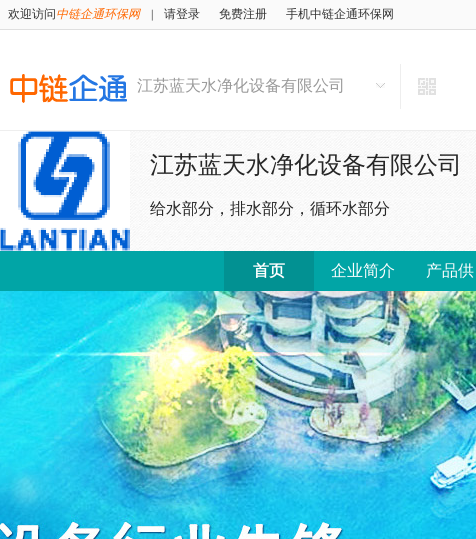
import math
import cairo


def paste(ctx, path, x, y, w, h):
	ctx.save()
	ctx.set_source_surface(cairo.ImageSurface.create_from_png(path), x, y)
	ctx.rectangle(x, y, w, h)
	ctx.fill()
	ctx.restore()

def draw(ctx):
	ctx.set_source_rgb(1, 1, 1)
	ctx.paint()
	ctx.set_source_rgb(0.98, 0.98, 0.98)
	ctx.rectangle(0, 0, 476, 29)
	ctx.fill()
	ctx.set_source_rgb(0.875, 0.875, 0.875)
	ctx.rectangle(0, 29, 476, 1)
	ctx.fill()
	ctx.select_font_face('WenQuanYi Zen Hei Medium')
	ctx.set_font_size(12)
	ctx.set_source_rgb(0.2, 0.2, 0.2)
	ctx.move_to(8, 18)
	ctx.show_text('欢迎访问')
	ctx.select_font_face('WenQuanYi Zen Hei Medium', cairo.FONT_SLANT_ITALIC)
	ctx.set_source_rgb(1, 0.404, 0)
	ctx.move_to(56, 18)
	ctx.show_text('中链企通环保网')
	ctx.select_font_face('Liberation Serif')
	ctx.set_source_rgb(0.149, 0.149, 0.149)
	ctx.move_to(151, 18)
	ctx.show_text('|')
	ctx.select_font_face('WenQuanYi Zen Hei Medium')
	ctx.set_source_rgb(0.2, 0.2, 0.2)
	for x, y, s in [
		(164, 18, '请登录'),
		(219, 18, '免费注册'),
		(286, 18, '手机中链企通环保网'),
	]:
		ctx.move_to(x, y)
		ctx.show_text(s)
	ctx.set_source_rgb(0.933, 0.933, 0.933)
	ctx.rectangle(0, 130, 476, 1)
	ctx.fill()
	paste(ctx, 'media/1.png', 10, 74, 117, 29)
	paste(ctx, 'media/2.png', 376, 83, 9, 5)
	ctx.set_font_size(16)
	ctx.set_source_rgb(0.6, 0.6, 0.6)
	ctx.move_to(137, 91)
	ctx.show_text('江苏蓝天水净化设备有限公司')
	paste(ctx, 'media/3.png', 418, 78, 18, 17)
	ctx.set_source_rgb(0.933, 0.933, 0.933)
	ctx.rectangle(400, 64, 1, 45)
	ctx.fill()
	paste(ctx, 'media/4.png', 130, 131, 346, 120)
	paste(ctx, 'media/5.png', 0, 131, 130, 120)
	ctx.set_font_size(24)
	ctx.set_source_rgb(0.149, 0.149, 0.149)
	ctx.move_to(150, 173)
	ctx.show_text('江苏蓝天水净化设备有限公司')
	ctx.set_font_size(16)
	ctx.move_to(150, 214)
	ctx.show_text('给水部分，排水部分，循环水部分')
	ctx.set_source_rgb(0.004, 0.647, 0.651)
	ctx.rectangle(0, 251, 476, 40)
	ctx.fill()
	ctx.set_source_rgb(0.008, 0.569, 0.573)
	ctx.rectangle(224, 251, 90, 40)
	ctx.fill()
	ctx.select_font_face('WenQuanYi Zen Hei', cairo.FONT_SLANT_NORMAL, cairo.FONT_WEIGHT_BOLD)
	ctx.set_source_rgb(1, 1, 1)
	ctx.move_to(253, 276)
	ctx.show_text('首页')
	ctx.select_font_face('WenQuanYi Zen Hei Medium')
	ctx.move_to(331, 276)
	ctx.show_text('企业简介')
	ctx.move_to(426, 276)
	ctx.show_text('产品供')
	paste(ctx, 'media/6.png', 0, 291, 476, 248)


surface = cairo.ImageSurface(cairo.FORMAT_RGB24, 476, 539)
ctx = cairo.Context(surface)
options = cairo.FontOptions()
options.set_hint_metrics(cairo.HINT_METRICS_OFF)
options.set_hint_style(cairo.HINT_STYLE_NONE)
ctx.set_font_options(options)
ctx.set_miter_limit(4)
draw(ctx)
surface.write_to_png('image.png')
